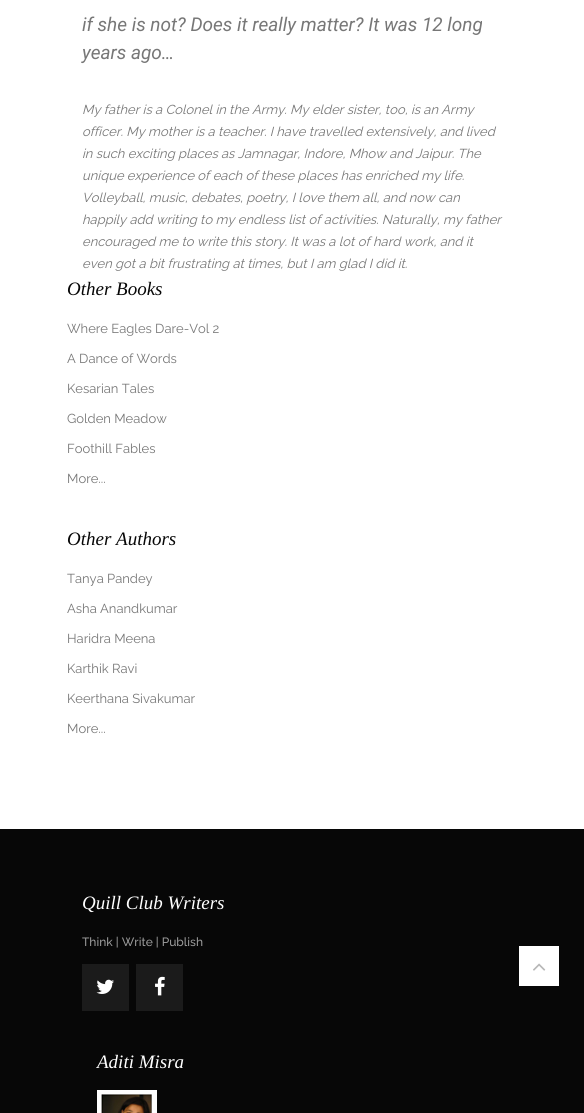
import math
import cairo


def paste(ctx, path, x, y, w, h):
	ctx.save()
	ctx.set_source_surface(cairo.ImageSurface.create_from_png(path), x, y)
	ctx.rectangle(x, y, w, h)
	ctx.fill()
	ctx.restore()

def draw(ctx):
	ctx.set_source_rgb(0.031, 0.031, 0.031)
	ctx.paint()
	ctx.set_source_rgb(1, 1, 1)
	ctx.rectangle(0, 0, 584, 829)
	ctx.fill()
	ctx.select_font_face('Roboto', cairo.FONT_SLANT_ITALIC)
	ctx.set_font_size(19)
	ctx.set_source_rgb(0.467, 0.467, 0.467)
	ctx.move_to(82, 31)
	ctx.show_text('if she is not? Does it really matter? It was 12 long')
	ctx.move_to(82, 59)
	ctx.show_text('years ago…')
	ctx.select_font_face('Raleway', cairo.FONT_SLANT_ITALIC)
	ctx.set_font_size(13)
	for x, y, s in [
		(82, 114, 'My father is a Colonel in the Army. My elder sister, too, is an Army'),
		(82, 136, 'officer. My mother is a teacher. I have travelled extensively, and lived'),
		(82, 158, 'in such exciting places as Jamnagar, Indore, Mhow and Jaipur. The'),
		(82, 180, 'unique experience of each of these places has enriched my life.'),
		(82, 202, 'Volleyball, music, debates, poetry, I love them all, and now can'),
		(82, 224, 'happily add writing to my endless list of activities. Naturally, my father'),
		(82, 246, 'encouraged me to write this story. It was a lot of hard work, and it'),
		(82, 268, 'even got a bit frustrating at times, but I am glad I did it.'),
	]:
		ctx.move_to(x, y)
		ctx.show_text(s)
	ctx.select_font_face('Liberation Serif', cairo.FONT_SLANT_ITALIC)
	ctx.set_font_size(19)
	ctx.set_source_rgb(0.031, 0.031, 0.031)
	ctx.move_to(67, 295)
	ctx.show_text('Other Books')
	ctx.select_font_face('Raleway')
	ctx.set_font_size(13)
	ctx.set_source_rgb(0.467, 0.467, 0.467)
	for x, y, s in [
		(67, 333, 'Where Eagles Dare-Vol 2'),
		(67, 363, 'A Dance of Words'),
		(67, 393, 'Kesarian Tales'),
		(67, 423, 'Golden Meadow'),
		(67, 453, 'Foothill Fables'),
		(67, 483, 'More...'),
	]:
		ctx.move_to(x, y)
		ctx.show_text(s)
	ctx.select_font_face('Liberation Serif', cairo.FONT_SLANT_ITALIC)
	ctx.set_font_size(19)
	ctx.set_source_rgb(0.031, 0.031, 0.031)
	ctx.move_to(67, 545)
	ctx.show_text('Other Authors')
	ctx.select_font_face('Raleway')
	ctx.set_font_size(13)
	ctx.set_source_rgb(0.467, 0.467, 0.467)
	for x, y, s in [
		(67, 583, 'Tanya Pandey'),
		(67, 613, 'Asha Anandkumar'),
		(67, 643, 'Haridra Meena'),
		(67, 673, 'Karthik Ravi'),
		(67, 703, 'Keerthana Sivakumar'),
		(67, 733, 'More...'),
	]:
		ctx.move_to(x, y)
		ctx.show_text(s)
	ctx.select_font_face('Liberation Serif', cairo.FONT_SLANT_ITALIC)
	ctx.set_font_size(19)
	ctx.set_source_rgb(1, 1, 1)
	ctx.move_to(82, 909)
	ctx.show_text('Quill Club Writers')
	ctx.select_font_face('Raleway Medium')
	ctx.set_font_size(12)
	ctx.set_source_rgb(0.608, 0.608, 0.608)
	ctx.move_to(82, 946)
	ctx.show_text('Think | Write | Publish')
	ctx.set_source_rgb(0.106, 0.106, 0.106)
	ctx.rectangle(82, 964, 47, 47)
	ctx.fill()
	paste(ctx, 'media/1.png', 96, 979, 18, 15)
	ctx.rectangle(136, 964, 47, 47)
	ctx.fill()
	paste(ctx, 'media/2.png', 155, 976, 10, 20)
	ctx.select_font_face('Liberation Serif', cairo.FONT_SLANT_ITALIC)
	ctx.set_font_size(19)
	ctx.set_source_rgb(1, 1, 1)
	ctx.move_to(97, 1068)
	ctx.show_text('Aditi Misra')
	paste(ctx, 'media/3.png', 97, 1090, 60, 23)
	ctx.rectangle(519, 946, 40, 40)
	ctx.fill()
	paste(ctx, 'media/4.png', 533, 963, 13, 8)


surface = cairo.ImageSurface(cairo.FORMAT_RGB24, 584, 1113)
ctx = cairo.Context(surface)
options = cairo.FontOptions()
options.set_hint_metrics(cairo.HINT_METRICS_OFF)
options.set_hint_style(cairo.HINT_STYLE_NONE)
ctx.set_font_options(options)
ctx.set_miter_limit(4)
draw(ctx)
surface.write_to_png('image.png')
